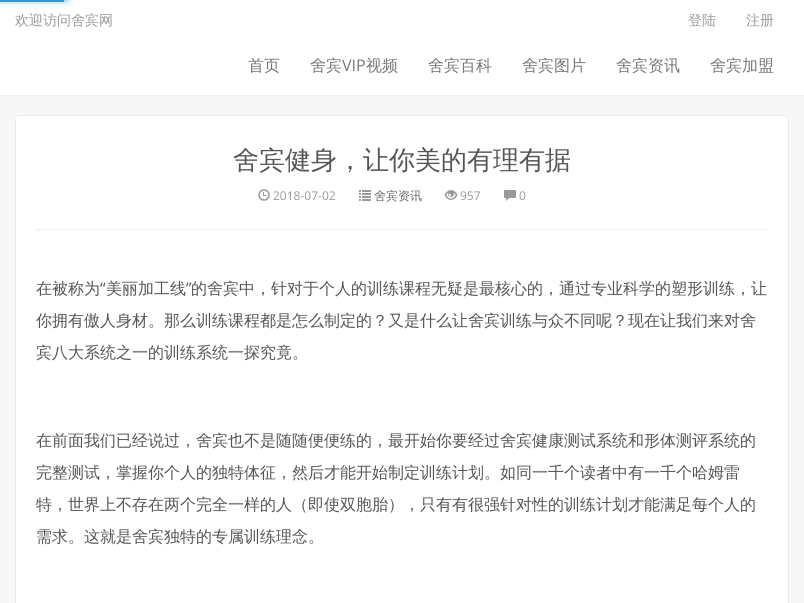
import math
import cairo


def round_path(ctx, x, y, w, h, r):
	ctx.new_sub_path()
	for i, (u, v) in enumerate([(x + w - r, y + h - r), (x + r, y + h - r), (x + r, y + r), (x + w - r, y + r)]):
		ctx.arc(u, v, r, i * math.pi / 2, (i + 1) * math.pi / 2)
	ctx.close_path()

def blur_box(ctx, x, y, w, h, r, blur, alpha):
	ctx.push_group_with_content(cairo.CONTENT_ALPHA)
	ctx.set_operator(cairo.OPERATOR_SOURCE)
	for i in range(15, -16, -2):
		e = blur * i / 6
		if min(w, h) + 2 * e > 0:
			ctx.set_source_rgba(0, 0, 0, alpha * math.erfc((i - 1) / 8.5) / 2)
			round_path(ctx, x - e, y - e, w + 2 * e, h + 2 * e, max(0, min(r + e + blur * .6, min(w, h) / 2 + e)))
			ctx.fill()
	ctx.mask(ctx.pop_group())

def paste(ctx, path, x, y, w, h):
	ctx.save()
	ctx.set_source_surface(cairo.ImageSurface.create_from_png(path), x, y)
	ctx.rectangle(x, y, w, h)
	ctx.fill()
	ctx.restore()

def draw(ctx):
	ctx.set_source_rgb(0.965, 0.965, 0.965)
	ctx.paint()
	ctx.set_source_rgb(0, 0, 0)
	blur_box(ctx, 0, 0, 804, 95, 0, 1, 0.1)
	ctx.set_source_rgb(1, 1, 1)
	ctx.rectangle(0, 0, 804, 95)
	ctx.fill()
	ctx.set_source_rgb(0.2, 0.6, 0.8)
	ctx.rectangle(0, 0, 64, 2)
	ctx.fill()
	ctx.set_source_rgb(0.133, 0.6, 0.867)
	blur_box(ctx, -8, -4, 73, 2, 0, 2.5, 1)
	blur_box(ctx, -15, -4, 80, 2, 0, 5, 1)
	ctx.select_font_face('WenQuanYi Zen Hei Medium')
	ctx.set_font_size(14)
	ctx.set_source_rgb(0.6, 0.6, 0.6)
	for x, y, s in [
		(15, 25, '欢迎访问舍宾网'),
		(688, 25, '登陆'),
		(746, 25, '注册'),
	]:
		ctx.move_to(x, y)
		ctx.show_text(s)
	ctx.set_font_size(16)
	ctx.set_source_rgb(0.467, 0.467, 0.467)
	ctx.move_to(248, 71)
	ctx.show_text('首页')
	ctx.move_to(310, 71)
	ctx.show_text('舍宾')
	ctx.select_font_face('Open Sans')
	ctx.move_to(342, 71)
	ctx.show_text('VIP')
	ctx.select_font_face('WenQuanYi Zen Hei Medium')
	ctx.move_to(366, 71)
	ctx.show_text('视频')
	ctx.move_to(428, 71)
	ctx.show_text('舍宾百科')
	ctx.set_source_rgb(1, 1, 1)
	ctx.new_path()
	ctx.move_to(537, -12)
	ctx.line_to(532, -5)
	ctx.line_to(503, 25)
	ctx.line_to(473, 54)
	ctx.line_to(466, 59)
	ctx.line_to(471, 52)
	ctx.line_to(499, 21)
	ctx.line_to(530, -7)
	ctx.close_path()
	ctx.fill()
	ctx.set_source_rgb(0.467, 0.467, 0.467)
	ctx.move_to(522, 71)
	ctx.show_text('舍宾图片')
	ctx.set_source_rgb(1, 1, 1)
	ctx.new_path()
	ctx.move_to(631, -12)
	ctx.line_to(626, -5)
	ctx.line_to(597, 25)
	ctx.line_to(567, 54)
	ctx.line_to(560, 59)
	ctx.line_to(565, 52)
	ctx.line_to(593, 21)
	ctx.line_to(624, -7)
	ctx.close_path()
	ctx.fill()
	ctx.set_source_rgb(0.467, 0.467, 0.467)
	ctx.move_to(616, 71)
	ctx.show_text('舍宾资讯')
	ctx.move_to(710, 71)
	ctx.show_text('舍宾加盟')
	ctx.set_source_rgb(1, 1, 1)
	round_path(ctx, 15.5, 115.5, 773, 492, 3.5)
	ctx.fill_preserve()
	ctx.set_source_rgb(0.918, 0.918, 0.918)
	ctx.set_line_width(1)
	ctx.stroke()
	ctx.set_source_rgb(0.933, 0.933, 0.933)
	ctx.rectangle(36, 229, 732, 1)
	ctx.fill()
	ctx.set_font_size(26)
	ctx.set_source_rgb(0.333, 0.333, 0.333)
	ctx.move_to(233, 169)
	ctx.show_text('舍宾健身，让你美的有理有据')
	paste(ctx, 'media/1.png', 258, 189, 12, 12)
	ctx.select_font_face('Open Sans')
	ctx.set_font_size(12)
	ctx.set_source_rgb(0.6, 0.6, 0.6)
	ctx.move_to(273, 200)
	ctx.show_text('2018-07-02')
	paste(ctx, 'media/2.png', 359, 190, 12, 11)
	ctx.select_font_face('WenQuanYi Zen Hei Medium')
	ctx.set_source_rgb(0.4, 0.4, 0.4)
	ctx.move_to(374, 200)
	ctx.show_text('舍宾资讯')
	paste(ctx, 'media/3.png', 444, 190, 14, 10)
	ctx.select_font_face('Open Sans')
	ctx.set_source_rgb(0.6, 0.6, 0.6)
	ctx.move_to(460, 200)
	ctx.show_text('957')
	paste(ctx, 'media/4.png', 504, 190, 12, 11)
	ctx.move_to(519, 200)
	ctx.show_text('0')
	ctx.select_font_face('WenQuanYi Zen Hei Medium')
	ctx.set_font_size(16)
	ctx.set_source_rgb(0.333, 0.333, 0.333)
	ctx.move_to(36, 294)
	ctx.show_text('在被称为')
	ctx.select_font_face('Open Sans')
	ctx.move_to(100, 294)
	ctx.show_text('“')
	ctx.select_font_face('WenQuanYi Zen Hei Medium')
	ctx.move_to(106, 294)
	ctx.show_text('美丽加工线')
	ctx.select_font_face('Open Sans')
	ctx.move_to(186, 294)
	ctx.show_text('”')
	ctx.select_font_face('WenQuanYi Zen Hei Medium')
	for x, y, s in [
		(191, 294, '的舍宾中，针对于个人的训练课程无疑是最核心的，通过专业科学的塑形训练，让'),
		(36, 326, '你拥有傲人身材。那么训练课程都是怎么制定的？又是什么让舍宾训练与众不同呢？现在让我们来对舍'),
		(36, 358, '宾八大系统之一的训练系统一探究竟。'),
		(36, 446, '在前面我们已经说过，舍宾也不是随随便便练的，最开始你要经过舍宾健康测试系统和形体测评系统的'),
		(36, 478, '完整测试，掌握你个人的独特体征，然后才能开始制定训练计划。如同一千个读者中有一千个哈姆雷'),
		(36, 510, '特，世界上不存在两个完全一样的人（即使双胞胎），只有有很强针对性的训练计划才能满足每个人的'),
		(36, 542, '需求。这就是舍宾独特的专属训练理念。'),
	]:
		ctx.move_to(x, y)
		ctx.show_text(s)


surface = cairo.ImageSurface(cairo.FORMAT_RGB24, 804, 603)
ctx = cairo.Context(surface)
options = cairo.FontOptions()
options.set_hint_metrics(cairo.HINT_METRICS_OFF)
options.set_hint_style(cairo.HINT_STYLE_NONE)
ctx.set_font_options(options)
ctx.set_miter_limit(4)
draw(ctx)
surface.write_to_png('image.png')
